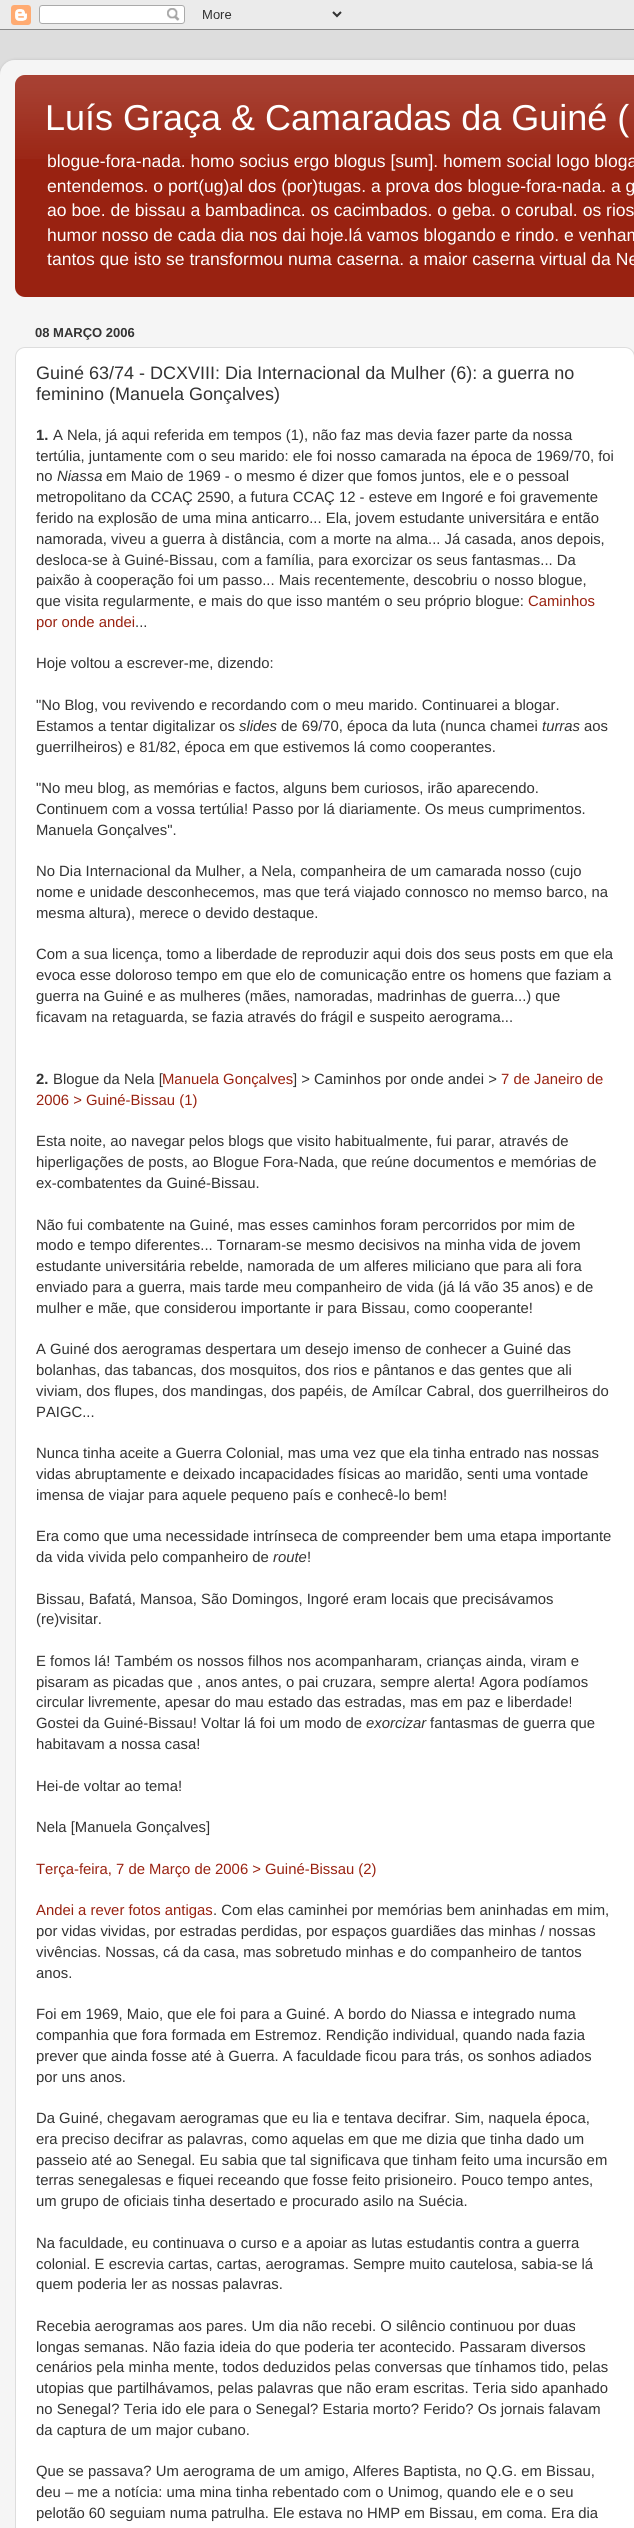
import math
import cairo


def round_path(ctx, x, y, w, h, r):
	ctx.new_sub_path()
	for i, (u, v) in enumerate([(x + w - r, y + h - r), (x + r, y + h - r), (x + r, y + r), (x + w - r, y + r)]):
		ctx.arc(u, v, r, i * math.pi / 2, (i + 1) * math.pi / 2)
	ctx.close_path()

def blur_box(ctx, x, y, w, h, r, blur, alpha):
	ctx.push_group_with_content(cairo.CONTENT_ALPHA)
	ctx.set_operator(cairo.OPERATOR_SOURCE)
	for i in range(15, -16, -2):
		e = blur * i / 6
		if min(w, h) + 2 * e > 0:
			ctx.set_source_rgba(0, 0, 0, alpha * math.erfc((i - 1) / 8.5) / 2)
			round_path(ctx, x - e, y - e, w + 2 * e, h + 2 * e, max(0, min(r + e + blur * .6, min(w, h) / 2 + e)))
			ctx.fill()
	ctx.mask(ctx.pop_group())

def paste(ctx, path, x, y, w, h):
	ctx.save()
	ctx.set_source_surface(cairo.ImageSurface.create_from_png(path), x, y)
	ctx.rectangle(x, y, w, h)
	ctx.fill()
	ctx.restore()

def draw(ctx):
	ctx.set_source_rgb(0.867, 0.867, 0.867)
	ctx.paint()
	paste(ctx, 'media/1.png', 0, 0, 634, 30)
	ctx.save()
	ctx.set_fill_rule(cairo.FILL_RULE_EVEN_ODD)
	ctx.new_path()
	ctx.move_to(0, 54)
	ctx.line_to(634, 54)
	ctx.line_to(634, 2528)
	ctx.line_to(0, 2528)
	ctx.close_path()
	ctx.move_to(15, 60)
	ctx.line_to(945, 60)
	ctx.curve_to(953.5, 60, 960, 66.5, 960, 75)
	ctx.line_to(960, 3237)
	ctx.curve_to(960, 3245.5, 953.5, 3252, 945, 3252)
	ctx.line_to(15, 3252)
	ctx.curve_to(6.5, 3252, 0, 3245.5, 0, 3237)
	ctx.line_to(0, 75)
	ctx.curve_to(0, 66.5, 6.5, 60, 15, 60)
	ctx.close_path()
	ctx.clip()
	ctx.set_source_rgb(0, 0, 0)
	blur_box(ctx, 0, 60, 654, 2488, 15, 1.5, 0.15)
	ctx.restore()
	paste(ctx, 'media/2.png', 0, 60, 634, 2468)
	ctx.set_source_rgb(0.6, 0.133, 0.067)
	round_path(ctx, 15, 75, 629, 222, 10)
	ctx.fill()
	paste(ctx, 'media/3.png', 15, 75, 619, 84)
	ctx.select_font_face('Liberation Sans')
	ctx.set_font_size(36)
	ctx.set_source_rgb(1, 1, 1)
	ctx.move_to(45, 130)
	ctx.show_text('Luís Graça & Camaradas da Guiné (')
	ctx.set_font_size(17.55)
	for x, y, s in [
		(47, 167, 'blogue-fora-nada. homo socius ergo blogus [sum]. homem social logo bloga'),
		(47, 192, 'entendemos. o port(ug)al dos (por)tugas. a prova dos blogue-fora-nada. a g'),
		(47, 216, 'ao boe. de bissau a bambadinca. os cacimbados. o geba. o corubal. os rios'),
		(47, 241, 'humor nosso de cada dia nos dai hoje.lá vamos blogando e rindo. e venham'),
		(47, 265, 'tantos que isto se transformou numa caserna. a maior caserna virtual da Ne'),
	]:
		ctx.move_to(x, y)
		ctx.show_text(s)
	ctx.select_font_face('Liberation Sans', cairo.FONT_SLANT_NORMAL, cairo.FONT_WEIGHT_BOLD)
	ctx.set_font_size(13)
	ctx.set_source_rgb(0.2, 0.2, 0.2)
	ctx.move_to(35, 337)
	ctx.show_text('08 MARÇO 2006')
	ctx.set_source_rgb(1, 1, 1)
	round_path(ctx, 15.5, 347.5, 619, 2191, 9.5)
	ctx.fill_preserve()
	ctx.set_source_rgb(0.867, 0.867, 0.867)
	ctx.set_line_width(1)
	ctx.stroke()
	ctx.select_font_face('Liberation Sans')
	ctx.set_font_size(18)
	ctx.set_source_rgb(0.2, 0.2, 0.2)
	ctx.move_to(36, 379)
	ctx.show_text('Guiné 63/74 - DCXVIII: Dia Internacional da Mulher (6): a guerra no')
	ctx.move_to(36, 400)
	ctx.show_text('feminino (Manuela Gonçalves)')
	ctx.select_font_face('Liberation Sans', cairo.FONT_SLANT_NORMAL, cairo.FONT_WEIGHT_BOLD)
	ctx.set_font_size(14.85)
	ctx.move_to(36, 440)
	ctx.show_text('1.')
	ctx.select_font_face('Liberation Sans')
	for x, y, s in [
		(53, 440, 'A Nela, já aqui referida em tempos (1), não faz mas devia fazer parte da nossa'),
		(36, 461, 'tertúlia, juntamente com o seu marido: ele foi nosso camarada na época de 1969/70, foi'),
		(36, 481, 'no'),
	]:
		ctx.move_to(x, y)
		ctx.show_text(s)
	ctx.select_font_face('Liberation Sans', cairo.FONT_SLANT_ITALIC)
	ctx.move_to(57, 481)
	ctx.show_text('Niassa')
	ctx.select_font_face('Liberation Sans')
	for x, y, s in [
		(106, 481, 'em Maio de 1969 - o mesmo é dizer que fomos juntos, ele e o pessoal'),
		(36, 502, 'metropolitano da CCAÇ 2590, a futura CCAÇ 12 - esteve em Ingoré e foi gravemente'),
		(36, 523, 'ferido na explosão de uma mina anticarro... Ela, jovem estudante universitára e então'),
		(36, 544, 'namorada, viveu a guerra à distância, com a morte na alma... Já casada, anos depois,'),
		(36, 565, 'desloca-se à Guiné-Bissau, com a família, para exorcizar os seus fantasmas... Da'),
		(36, 585, 'paixão à cooperação foi um passo... Mais recentemente, descobriu o nosso blogue,'),
		(36, 606, 'que visita regularmente, e mais do que isso mantém o seu próprio blogue:'),
	]:
		ctx.move_to(x, y)
		ctx.show_text(s)
	ctx.set_source_rgb(0.6, 0.133, 0.067)
	ctx.move_to(528, 606)
	ctx.show_text('Caminhos')
	ctx.move_to(36, 627)
	ctx.show_text('por onde andei')
	ctx.set_source_rgb(0.2, 0.2, 0.2)
	for x, y, s in [
		(135, 627, '...'),
		(36, 668, 'Hoje voltou a escrever-me, dizendo:'),
		(36, 710, '"No Blog, vou revivendo e recordando com o meu marido. Continuarei a blogar.'),
		(36, 731, 'Estamos a tentar digitalizar os'),
	]:
		ctx.move_to(x, y)
		ctx.show_text(s)
	ctx.select_font_face('Liberation Sans', cairo.FONT_SLANT_ITALIC)
	ctx.move_to(239, 731)
	ctx.show_text('slides')
	ctx.select_font_face('Liberation Sans')
	ctx.move_to(281, 731)
	ctx.show_text('de 69/70, época da luta (nunca chamei')
	ctx.select_font_face('Liberation Sans', cairo.FONT_SLANT_ITALIC)
	ctx.move_to(542, 731)
	ctx.show_text('turras')
	ctx.select_font_face('Liberation Sans')
	for x, y, s in [
		(584, 731, 'aos'),
		(36, 752, 'guerrilheiros) e 81/82, época em que estivemos lá como cooperantes.'),
		(36, 793, '"No meu blog, as memórias e factos, alguns bem curiosos, irão aparecendo.'),
		(36, 814, 'Continuem com a vossa tertúlia! Passo por lá diariamente. Os meus cumprimentos.'),
		(36, 835, 'Manuela Gonçalves".'),
		(36, 876, 'No Dia Internacional da Mulher, a Nela, companheira de um camarada nosso (cujo'),
		(36, 897, 'nome e unidade desconhecemos, mas que terá viajado connosco no memso barco, na'),
		(36, 918, 'mesma altura), merece o devido destaque.'),
		(36, 959, 'Com a sua licença, tomo a liberdade de reproduzir aqui dois dos seus posts em que ela'),
		(36, 980, 'evoca esse doloroso tempo em que elo de comunicação entre os homens que faziam a'),
		(36, 1001, 'guerra na Guiné e as mulheres (mães, namoradas, madrinhas de guerra...) que'),
		(36, 1022, 'ficavam na retaguarda, se fazia através do frágil e suspeito aerograma...'),
	]:
		ctx.move_to(x, y)
		ctx.show_text(s)
	ctx.select_font_face('Liberation Sans', cairo.FONT_SLANT_NORMAL, cairo.FONT_WEIGHT_BOLD)
	ctx.move_to(36, 1084)
	ctx.show_text('2.')
	ctx.select_font_face('Liberation Sans')
	ctx.move_to(53, 1084)
	ctx.show_text('Blogue da Nela [')
	ctx.set_source_rgb(0.6, 0.133, 0.067)
	ctx.move_to(162, 1084)
	ctx.show_text('Manuela Gonçalves')
	ctx.set_source_rgb(0.2, 0.2, 0.2)
	ctx.move_to(293, 1084)
	ctx.show_text('] > Caminhos por onde andei >')
	ctx.set_source_rgb(0.6, 0.133, 0.067)
	ctx.move_to(501, 1084)
	ctx.show_text('7 de Janeiro de')
	ctx.move_to(36, 1105)
	ctx.show_text('2006 > Guiné-Bissau (1)')
	ctx.set_source_rgb(0.2, 0.2, 0.2)
	for x, y, s in [
		(36, 1146, 'Esta noite, ao navegar pelos blogs que visito habitualmente, fui parar, através de'),
		(36, 1167, 'hiperligações de posts, ao Blogue Fora-Nada, que reúne documentos e memórias de'),
		(36, 1188, 'ex-combatentes da Guiné-Bissau.'),
		(36, 1230, 'Não fui combatente na Guiné, mas esses caminhos foram percorridos por mim de'),
		(36, 1250, 'modo e tempo diferentes... Tornaram-se mesmo decisivos na minha vida de jovem'),
		(36, 1271, 'estudante universitária rebelde, namorada de um alferes miliciano que para ali fora'),
		(36, 1292, 'enviado para a guerra, mais tarde meu companheiro de vida (já lá vão 35 anos) e de'),
		(36, 1313, 'mulher e mãe, que considerou importante ir para Bissau, como cooperante!'),
		(36, 1354, 'A Guiné dos aerogramas despertara um desejo imenso de conhecer a Guiné das'),
		(36, 1375, 'bolanhas, das tabancas, dos mosquitos, dos rios e pântanos e das gentes que ali'),
		(36, 1396, 'viviam, dos flupes, dos mandingas, dos papéis, de Amílcar Cabral, dos guerrilheiros do'),
		(36, 1417, 'PAIGC...'),
		(36, 1458, 'Nunca tinha aceite a Guerra Colonial, mas uma vez que ela tinha entrado nas nossas'),
		(36, 1479, 'vidas abruptamente e deixado incapacidades físicas ao maridão, senti uma vontade'),
		(36, 1500, 'imensa de viajar para aquele pequeno país e conhecê-lo bem!'),
		(36, 1541, 'Era como que uma necessidade intrínseca de compreender bem uma etapa importante'),
		(36, 1562, 'da vida vivida pelo companheiro de'),
	]:
		ctx.move_to(x, y)
		ctx.show_text(s)
	ctx.select_font_face('Liberation Sans', cairo.FONT_SLANT_ITALIC)
	ctx.move_to(273, 1562)
	ctx.show_text('route')
	ctx.select_font_face('Liberation Sans')
	for x, y, s in [
		(307, 1562, '!'),
		(36, 1604, 'Bissau, Bafatá, Mansoa, São Domingos, Ingoré eram locais que precisávamos'),
		(36, 1624, '(re)visitar.'),
		(36, 1666, 'E fomos lá! Também os nossos filhos nos acompanharam, crianças ainda, viram e'),
		(36, 1687, 'pisaram as picadas que , anos antes, o pai cruzara, sempre alerta! Agora podíamos'),
		(36, 1707, 'circular livremente, apesar do mau estado das estradas, mas em paz e liberdade!'),
		(36, 1728, 'Gostei da Guiné-Bissau! Voltar lá foi um modo de'),
	]:
		ctx.move_to(x, y)
		ctx.show_text(s)
	ctx.select_font_face('Liberation Sans', cairo.FONT_SLANT_ITALIC)
	ctx.move_to(366, 1728)
	ctx.show_text('exorcizar')
	ctx.select_font_face('Liberation Sans')
	for x, y, s in [
		(430, 1728, 'fantasmas de guerra que'),
		(36, 1749, 'habitavam a nossa casa!'),
		(36, 1791, 'Hei-de voltar ao tema!'),
		(36, 1832, 'Nela [Manuela Gonçalves]'),
	]:
		ctx.move_to(x, y)
		ctx.show_text(s)
	ctx.set_source_rgb(0.6, 0.133, 0.067)
	ctx.move_to(36, 1874)
	ctx.show_text('Terça-feira, 7 de Março de 2006 > Guiné-Bissau (2)')
	ctx.move_to(36, 1915)
	ctx.show_text('Andei a rever fotos antigas')
	ctx.set_source_rgb(0.2, 0.2, 0.2)
	for x, y, s in [
		(213, 1915, '. Com elas caminhei por memórias bem aninhadas em mim,'),
		(36, 1936, 'por vidas vividas, por estradas perdidas, por espaços guardiães das minhas / nossas'),
		(36, 1957, 'vivências. Nossas, cá da casa, mas sobretudo minhas e do companheiro de tantos'),
		(36, 1978, 'anos.'),
		(36, 2019, 'Foi em 1969, Maio, que ele foi para a Guiné. A bordo do Niassa e integrado numa'),
		(36, 2040, 'companhia que fora formada em Estremoz. Rendição individual, quando nada fazia'),
		(36, 2061, 'prever que ainda fosse até à Guerra. A faculdade ficou para trás, os sonhos adiados'),
		(36, 2082, 'por uns anos.'),
		(36, 2123, 'Da Guiné, chegavam aerogramas que eu lia e tentava decifrar. Sim, naquela época,'),
		(36, 2144, 'era preciso decifrar as palavras, como aquelas em que me dizia que tinha dado um'),
		(36, 2165, 'passeio até ao Senegal. Eu sabia que tal significava que tinham feito uma incursão em'),
		(36, 2185, 'terras senegalesas e fiquei receando que fosse feito prisioneiro. Pouco tempo antes,'),
		(36, 2206, 'um grupo de oficiais tinha desertado e procurado asilo na Suécia.'),
		(36, 2248, 'Na faculdade, eu continuava o curso e a apoiar as lutas estudantis contra a guerra'),
		(36, 2269, 'colonial. E escrevia cartas, cartas, aerogramas. Sempre muito cautelosa, sabia-se lá'),
		(36, 2289, 'quem poderia ler as nossas palavras.'),
		(36, 2331, 'Recebia aerogramas aos pares. Um dia não recebi. O silêncio continuou por duas'),
		(36, 2352, 'longas semanas. Não fazia ideia do que poderia ter acontecido. Passaram diversos'),
		(36, 2372, 'cenários pela minha mente, todos deduzidos pelas conversas que tínhamos tido, pelas'),
		(36, 2393, 'utopias que partilhávamos, pelas palavras que não eram escritas. Teria sido apanhado'),
		(36, 2414, 'no Senegal? Teria ido ele para o Senegal? Estaria morto? Ferido? Os jornais falavam'),
		(36, 2435, 'da captura de um major cubano.'),
		(36, 2476, 'Que se passava? Um aerograma de um amigo, Alferes Baptista, no Q.G. em Bissau,'),
		(36, 2497, 'deu – me a notícia: uma mina tinha rebentado com o Unimog, quando ele e o seu'),
		(36, 2518, 'pelotão 60 seguiam numa patrulha. Ele estava no HMP em Bissau, em coma. Era dia'),
	]:
		ctx.move_to(x, y)
		ctx.show_text(s)


surface = cairo.ImageSurface(cairo.FORMAT_RGB24, 634, 2528)
ctx = cairo.Context(surface)
options = cairo.FontOptions()
options.set_hint_metrics(cairo.HINT_METRICS_OFF)
options.set_hint_style(cairo.HINT_STYLE_NONE)
ctx.set_font_options(options)
ctx.set_miter_limit(4)
draw(ctx)
surface.write_to_png('image.png')
